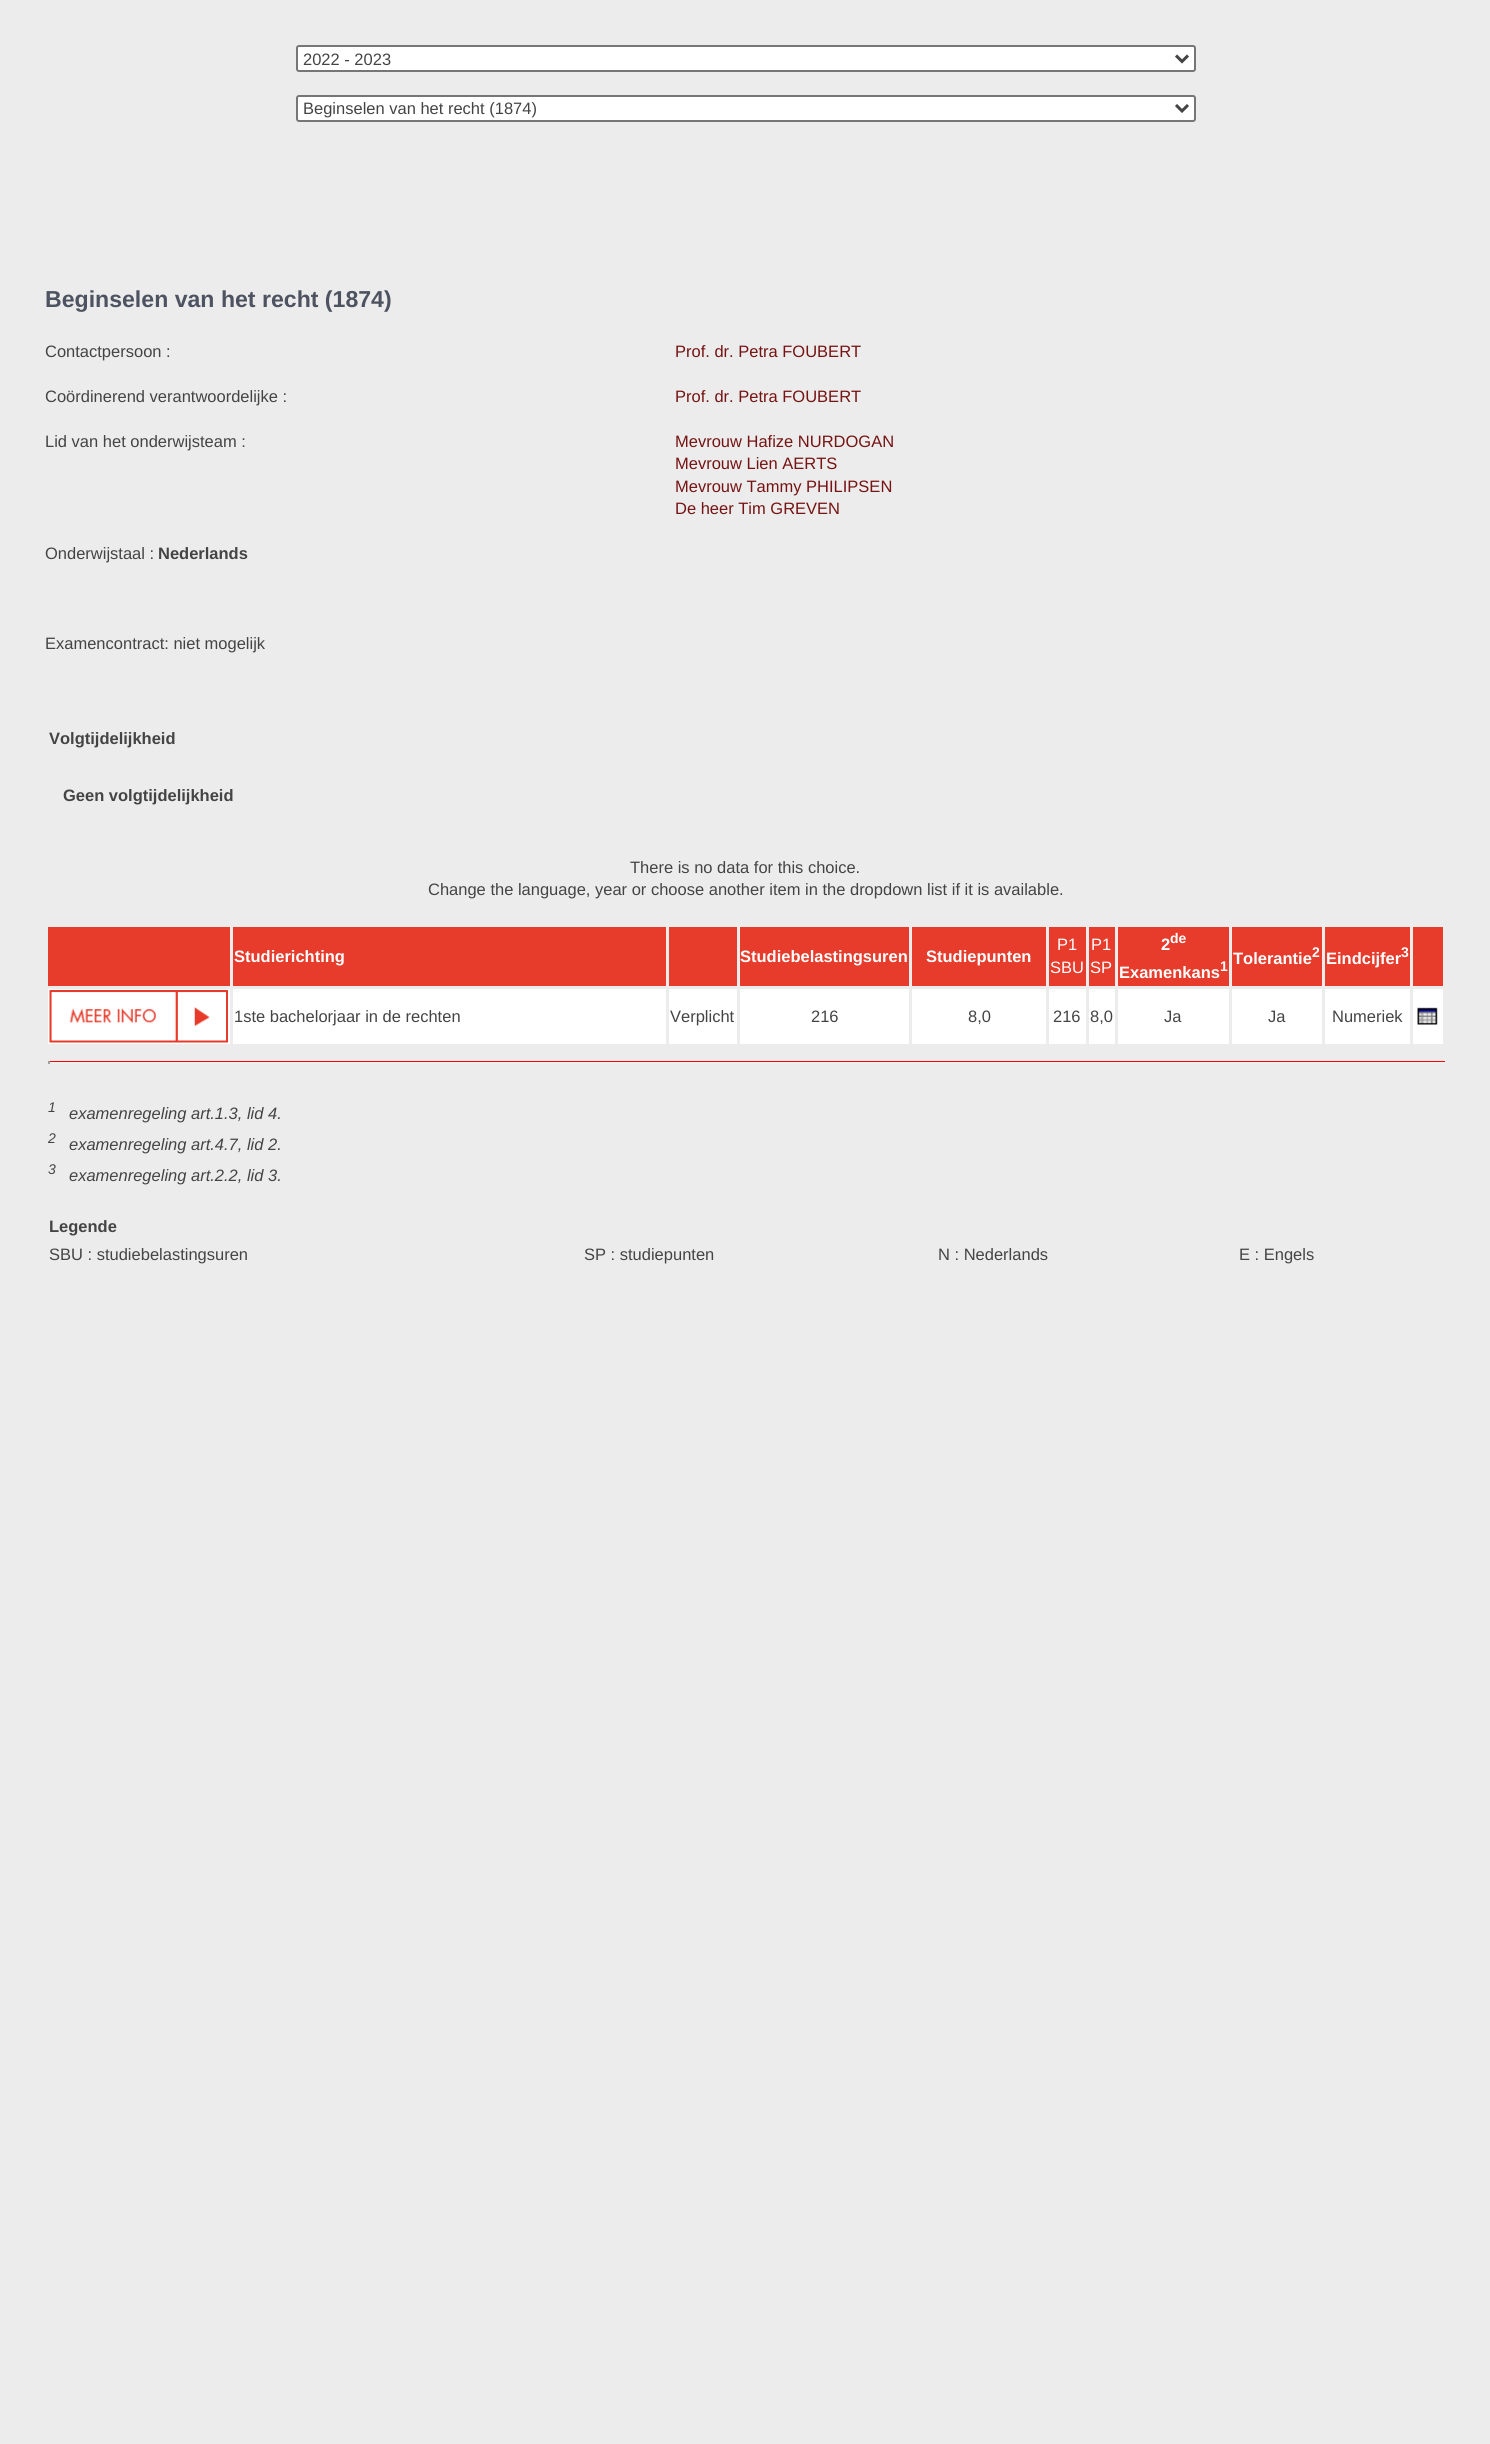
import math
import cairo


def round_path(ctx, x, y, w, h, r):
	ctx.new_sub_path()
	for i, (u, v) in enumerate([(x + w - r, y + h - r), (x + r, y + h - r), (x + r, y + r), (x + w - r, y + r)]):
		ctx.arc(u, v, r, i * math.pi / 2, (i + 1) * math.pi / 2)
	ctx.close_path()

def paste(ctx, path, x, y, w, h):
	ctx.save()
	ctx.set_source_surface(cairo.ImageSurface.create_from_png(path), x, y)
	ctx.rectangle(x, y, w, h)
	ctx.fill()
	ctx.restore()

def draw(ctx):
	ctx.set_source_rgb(0.922, 0.922, 0.922)
	ctx.paint()
	ctx.set_source_rgb(1, 1, 1)
	round_path(ctx, 297, 46, 898, 25, 2)
	ctx.fill_preserve()
	ctx.set_source_rgb(0.463, 0.463, 0.463)
	ctx.stroke()
	ctx.new_path()
	ctx.move_to(1176, 55.5)
	ctx.line_to(1182, 61.5)
	ctx.line_to(1188, 55.5)
	ctx.set_source_rgb(0.267, 0.267, 0.267)
	ctx.set_line_width(3)
	ctx.stroke()
	ctx.select_font_face('Liberation Sans')
	ctx.set_font_size(16.5)
	ctx.move_to(303, 65)
	ctx.show_text('2022 - 2023')
	ctx.set_source_rgb(1, 1, 1)
	round_path(ctx, 297, 96, 898, 25, 2)
	ctx.fill_preserve()
	ctx.set_source_rgb(0.463, 0.463, 0.463)
	ctx.set_line_width(2)
	ctx.stroke()
	ctx.new_path()
	ctx.move_to(1176, 105)
	ctx.line_to(1182, 111)
	ctx.line_to(1188, 105)
	ctx.set_source_rgb(0.267, 0.267, 0.267)
	ctx.set_line_width(3)
	ctx.stroke()
	ctx.move_to(303, 114)
	ctx.show_text('Beginselen van het recht (1874)')
	ctx.select_font_face('Liberation Sans', cairo.FONT_SLANT_NORMAL, cairo.FONT_WEIGHT_BOLD)
	ctx.set_font_size(23.1)
	ctx.set_source_rgb(0.302, 0.325, 0.376)
	ctx.move_to(45, 307)
	ctx.show_text('Beginselen van het recht (1874)')
	ctx.select_font_face('Liberation Sans')
	ctx.set_font_size(16.5)
	ctx.set_source_rgb(0.267, 0.267, 0.267)
	ctx.move_to(45, 357)
	ctx.show_text('Contactpersoon :')
	ctx.set_source_rgb(0.463, 0.078, 0.075)
	ctx.move_to(675, 357)
	ctx.show_text('Prof. dr. Petra FOUBERT')
	ctx.set_source_rgb(0.267, 0.267, 0.267)
	ctx.move_to(45, 402)
	ctx.show_text('Coördinerend verantwoordelijke :')
	ctx.set_source_rgb(0.463, 0.078, 0.075)
	ctx.move_to(675, 402)
	ctx.show_text('Prof. dr. Petra FOUBERT')
	ctx.set_source_rgb(0.267, 0.267, 0.267)
	ctx.move_to(45, 447)
	ctx.show_text('Lid van het onderwijsteam :')
	ctx.set_source_rgb(0.463, 0.078, 0.075)
	for x, y, s in [
		(675, 447, 'Mevrouw Hafize NURDOGAN'),
		(675, 469, 'Mevrouw Lien AERTS'),
		(675, 492, 'Mevrouw Tammy PHILIPSEN'),
		(675, 514, 'De heer Tim GREVEN'),
	]:
		ctx.move_to(x, y)
		ctx.show_text(s)
	ctx.set_source_rgb(0.267, 0.267, 0.267)
	ctx.move_to(45, 559)
	ctx.show_text('Onderwijstaal :')
	ctx.select_font_face('Liberation Sans', cairo.FONT_SLANT_NORMAL, cairo.FONT_WEIGHT_BOLD)
	ctx.move_to(158, 559)
	ctx.show_text('Nederlands')
	ctx.select_font_face('Liberation Sans')
	ctx.move_to(45, 649)
	ctx.show_text('Examencontract: niet mogelijk')
	ctx.select_font_face('Liberation Sans', cairo.FONT_SLANT_NORMAL, cairo.FONT_WEIGHT_BOLD)
	ctx.move_to(49, 744)
	ctx.show_text('Volgtijdelijkheid')
	ctx.move_to(63, 801)
	ctx.show_text('Geen volgtijdelijkheid')
	ctx.select_font_face('Liberation Sans')
	ctx.move_to(630, 873)
	ctx.show_text('There is no data for this choice.')
	ctx.move_to(428, 895)
	ctx.show_text('Change the language, year or choose another item in the dropdown list if it is available.')
	ctx.set_source_rgb(0.906, 0.231, 0.169)
	ctx.rectangle(48, 927, 182, 59)
	ctx.fill()
	ctx.rectangle(233, 927, 433, 59)
	ctx.fill()
	ctx.select_font_face('Liberation Sans', cairo.FONT_SLANT_NORMAL, cairo.FONT_WEIGHT_BOLD)
	ctx.set_source_rgb(1, 1, 1)
	ctx.move_to(234, 962)
	ctx.show_text('Studierichting')
	ctx.set_source_rgb(0.906, 0.231, 0.169)
	ctx.rectangle(669, 927, 68, 59)
	ctx.fill()
	ctx.rectangle(740, 927, 169, 59)
	ctx.fill()
	ctx.set_source_rgb(1, 1, 1)
	ctx.move_to(740, 962)
	ctx.show_text('Studiebelastingsuren')
	ctx.set_source_rgb(0.906, 0.231, 0.169)
	ctx.rectangle(912, 927, 134, 59)
	ctx.fill()
	ctx.set_source_rgb(1, 1, 1)
	ctx.move_to(926, 962)
	ctx.show_text('Studiepunten')
	ctx.set_source_rgb(0.906, 0.231, 0.169)
	ctx.rectangle(1049, 927, 37, 59)
	ctx.fill()
	ctx.select_font_face('Liberation Sans')
	ctx.set_source_rgb(1, 1, 1)
	ctx.move_to(1057, 950)
	ctx.show_text('P1')
	ctx.move_to(1050, 973)
	ctx.show_text('SBU')
	ctx.set_source_rgb(0.906, 0.231, 0.169)
	ctx.rectangle(1089, 927, 26, 59)
	ctx.fill()
	ctx.set_source_rgb(1, 1, 1)
	ctx.move_to(1091, 950)
	ctx.show_text('P1')
	ctx.move_to(1090, 973)
	ctx.show_text('SP')
	ctx.set_source_rgb(0.906, 0.231, 0.169)
	ctx.rectangle(1118, 927, 111, 59)
	ctx.fill()
	ctx.select_font_face('Liberation Sans', cairo.FONT_SLANT_NORMAL, cairo.FONT_WEIGHT_BOLD)
	ctx.set_source_rgb(1, 1, 1)
	ctx.move_to(1161, 950)
	ctx.show_text('2')
	ctx.set_font_size(14)
	ctx.move_to(1170, 943)
	ctx.show_text('de')
	ctx.set_font_size(16.5)
	ctx.move_to(1119, 978)
	ctx.show_text('Examenkans')
	ctx.set_font_size(14)
	ctx.move_to(1220, 971)
	ctx.show_text('1')
	ctx.set_source_rgb(0.906, 0.231, 0.169)
	ctx.rectangle(1232, 927, 90, 59)
	ctx.fill()
	ctx.set_font_size(16.5)
	ctx.set_source_rgb(1, 1, 1)
	ctx.move_to(1233, 964)
	ctx.show_text('Tolerantie')
	ctx.set_font_size(14)
	ctx.move_to(1312, 957)
	ctx.show_text('2')
	ctx.set_source_rgb(0.906, 0.231, 0.169)
	ctx.rectangle(1325, 927, 85, 59)
	ctx.fill()
	ctx.set_font_size(16.5)
	ctx.set_source_rgb(1, 1, 1)
	ctx.move_to(1326, 964)
	ctx.show_text('Eindcijfer')
	ctx.set_font_size(14)
	ctx.move_to(1401, 957)
	ctx.show_text('3')
	ctx.set_source_rgb(0.906, 0.231, 0.169)
	ctx.rectangle(1413, 927, 30, 59)
	ctx.fill()
	ctx.set_source_rgb(1, 1, 1)
	ctx.rectangle(48, 989, 182, 55)
	ctx.fill()
	paste(ctx, 'media/1.png', 49, 990, 179, 53)
	ctx.rectangle(233, 989, 433, 55)
	ctx.fill()
	ctx.select_font_face('Liberation Sans')
	ctx.set_font_size(16.5)
	ctx.set_source_rgb(0.267, 0.267, 0.267)
	ctx.move_to(234, 1022)
	ctx.show_text('1ste bachelorjaar in de rechten')
	ctx.set_source_rgb(1, 1, 1)
	ctx.rectangle(669, 989, 68, 55)
	ctx.fill()
	ctx.set_source_rgb(0.267, 0.267, 0.267)
	ctx.move_to(670, 1022)
	ctx.show_text('Verplicht')
	ctx.set_source_rgb(1, 1, 1)
	ctx.rectangle(740, 989, 169, 55)
	ctx.fill()
	ctx.set_source_rgb(0.267, 0.267, 0.267)
	ctx.move_to(811, 1022)
	ctx.show_text('216')
	ctx.set_source_rgb(1, 1, 1)
	ctx.rectangle(912, 989, 134, 55)
	ctx.fill()
	ctx.set_source_rgb(0.267, 0.267, 0.267)
	ctx.move_to(968, 1022)
	ctx.show_text('8,0')
	ctx.set_source_rgb(1, 1, 1)
	ctx.rectangle(1049, 989, 37, 55)
	ctx.fill()
	ctx.set_source_rgb(0.267, 0.267, 0.267)
	ctx.move_to(1053, 1022)
	ctx.show_text('216')
	ctx.set_source_rgb(1, 1, 1)
	ctx.rectangle(1089, 989, 26, 55)
	ctx.fill()
	ctx.set_source_rgb(0.267, 0.267, 0.267)
	ctx.move_to(1090, 1022)
	ctx.show_text('8,0')
	ctx.set_source_rgb(1, 1, 1)
	ctx.rectangle(1118, 989, 111, 55)
	ctx.fill()
	ctx.set_source_rgb(0.267, 0.267, 0.267)
	ctx.move_to(1164, 1022)
	ctx.show_text('Ja')
	ctx.set_source_rgb(1, 1, 1)
	ctx.rectangle(1232, 989, 90, 55)
	ctx.fill()
	ctx.set_source_rgb(0.267, 0.267, 0.267)
	ctx.move_to(1268, 1022)
	ctx.show_text('Ja')
	ctx.set_source_rgb(1, 1, 1)
	ctx.rectangle(1325, 989, 85, 55)
	ctx.fill()
	ctx.set_source_rgb(0.267, 0.267, 0.267)
	ctx.move_to(1332, 1022)
	ctx.show_text('Numeriek')
	ctx.set_source_rgb(1, 1, 1)
	ctx.rectangle(1413, 989, 30, 55)
	ctx.fill()
	paste(ctx, 'media/2.png', 1417, 1007, 21, 18)
	ctx.set_source_rgb(1, 0, 0)
	ctx.rectangle(48, 1061, 1398, 1)
	ctx.fill()
	ctx.set_source_rgb(0.933, 0.933, 0.933)
	ctx.rectangle(1445, 1061, 2, 3)
	ctx.rectangle(48, 1062, 1398, 2)
	ctx.fill()
	ctx.set_source_rgb(0.624, 0.624, 0.624)
	ctx.rectangle(48, 1061, 2, 3)
	ctx.fill()
	ctx.select_font_face('Liberation Sans', cairo.FONT_SLANT_ITALIC)
	ctx.set_font_size(14)
	ctx.set_source_rgb(0.267, 0.267, 0.267)
	ctx.move_to(48, 1112)
	ctx.show_text('1')
	ctx.set_font_size(16.5)
	ctx.move_to(69, 1119)
	ctx.show_text('examenregeling art.1.3, lid 4.')
	ctx.set_font_size(14)
	ctx.move_to(48, 1143)
	ctx.show_text('2')
	ctx.set_font_size(16.5)
	ctx.move_to(69, 1150)
	ctx.show_text('examenregeling art.4.7, lid 2.')
	ctx.set_font_size(14)
	ctx.move_to(48, 1174)
	ctx.show_text('3')
	ctx.set_font_size(16.5)
	ctx.move_to(69, 1181)
	ctx.show_text('examenregeling art.2.2, lid 3.')
	ctx.select_font_face('Liberation Sans', cairo.FONT_SLANT_NORMAL, cairo.FONT_WEIGHT_BOLD)
	ctx.move_to(49, 1232)
	ctx.show_text('Legende')
	ctx.select_font_face('Liberation Sans')
	for x, y, s in [
		(49, 1260, 'SBU : studiebelastingsuren'),
		(584, 1260, 'SP : studiepunten'),
		(938, 1260, 'N : Nederlands'),
		(1239, 1260, 'E : Engels'),
	]:
		ctx.move_to(x, y)
		ctx.show_text(s)


surface = cairo.ImageSurface(cairo.FORMAT_RGB24, 1490, 2444)
ctx = cairo.Context(surface)
options = cairo.FontOptions()
options.set_hint_metrics(cairo.HINT_METRICS_OFF)
options.set_hint_style(cairo.HINT_STYLE_NONE)
ctx.set_font_options(options)
ctx.set_miter_limit(4)
draw(ctx)
surface.write_to_png('image.png')
